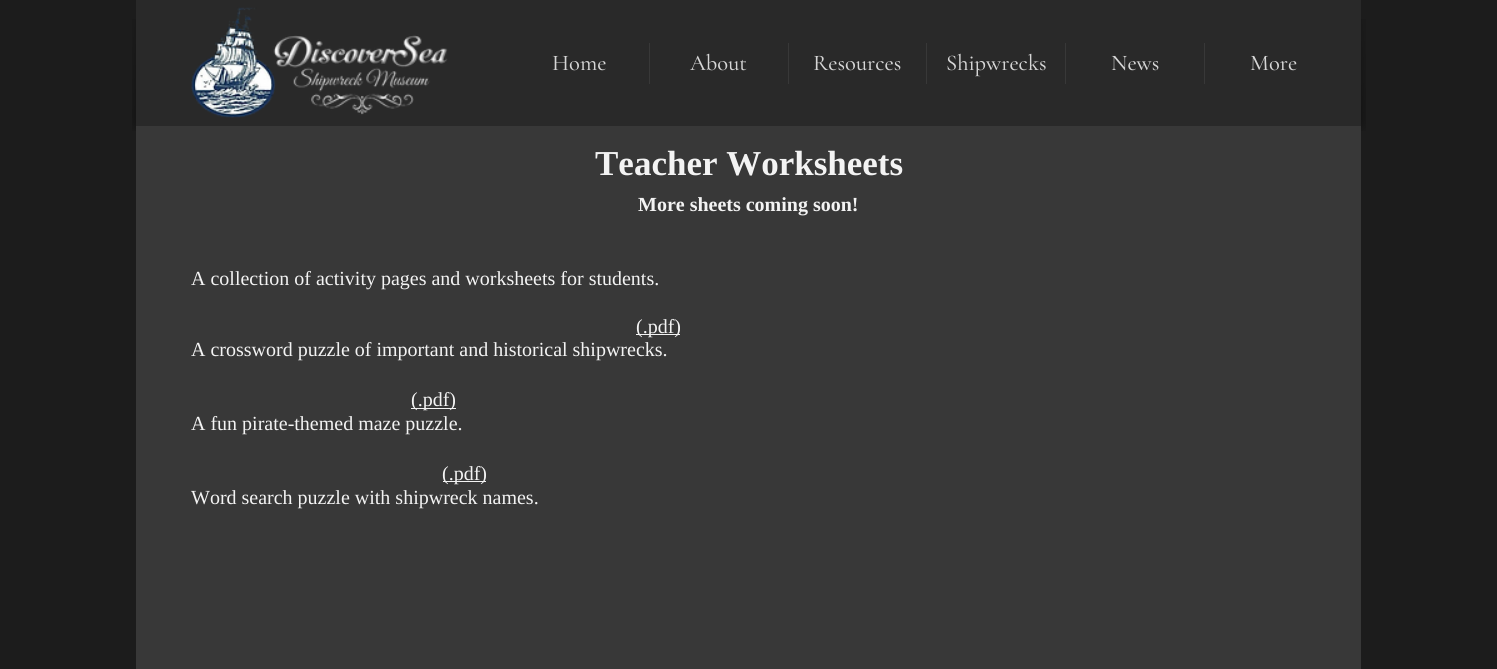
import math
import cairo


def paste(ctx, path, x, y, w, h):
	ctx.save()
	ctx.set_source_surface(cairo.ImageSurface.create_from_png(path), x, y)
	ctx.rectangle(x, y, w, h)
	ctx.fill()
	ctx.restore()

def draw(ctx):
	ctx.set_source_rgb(0.11, 0.11, 0.11)
	ctx.paint()
	paste(ctx, 'media/1.png', 132, 19, 4, 112)
	ctx.set_source_rgb(0.161, 0.161, 0.161)
	ctx.rectangle(136, 0, 1225, 126)
	ctx.fill()
	paste(ctx, 'media/2.png', 1361, 19, 5, 112)
	paste(ctx, 'media/3.png', 191, 7, 257, 111)
	ctx.select_font_face('Cormorant Garamond Medium')
	ctx.set_font_size(22.5)
	ctx.set_source_rgb(0.839, 0.839, 0.839)
	ctx.move_to(552, 70)
	ctx.show_text('Home')
	ctx.set_source_rgb(0.22, 0.22, 0.22)
	ctx.rectangle(649, 43, 1, 41)
	ctx.fill()
	ctx.set_source_rgb(0.839, 0.839, 0.839)
	ctx.move_to(690, 70)
	ctx.show_text('About')
	ctx.set_source_rgb(0.22, 0.22, 0.22)
	ctx.rectangle(788, 43, 1, 41)
	ctx.fill()
	ctx.set_source_rgb(0.839, 0.839, 0.839)
	ctx.move_to(813, 70)
	ctx.show_text('Resources')
	ctx.set_source_rgb(0.22, 0.22, 0.22)
	ctx.rectangle(926, 43, 1, 41)
	ctx.fill()
	ctx.set_source_rgb(0.839, 0.839, 0.839)
	ctx.move_to(946, 70)
	ctx.show_text('Shipwrecks')
	ctx.set_source_rgb(0.22, 0.22, 0.22)
	ctx.rectangle(1065, 43, 1, 41)
	ctx.fill()
	ctx.set_source_rgb(0.839, 0.839, 0.839)
	ctx.move_to(1111, 70)
	ctx.show_text('News')
	ctx.set_source_rgb(0.22, 0.22, 0.22)
	ctx.rectangle(1204, 43, 1, 41)
	ctx.fill()
	ctx.set_source_rgb(0.839, 0.839, 0.839)
	ctx.move_to(1250, 70)
	ctx.show_text('More')
	ctx.set_source_rgb(0.22, 0.22, 0.22)
	ctx.rectangle(136, 126, 1225, 543)
	ctx.fill()
	ctx.select_font_face('Liberation Serif', cairo.FONT_SLANT_NORMAL, cairo.FONT_WEIGHT_BOLD)
	ctx.set_font_size(35)
	ctx.set_source_rgb(0.953, 0.953, 0.953)
	ctx.move_to(595, 175)
	ctx.show_text('Teacher Worksheets')
	ctx.set_font_size(20)
	ctx.move_to(638, 211)
	ctx.show_text('More sheets coming soon!')
	ctx.select_font_face('Liberation Serif')
	ctx.move_to(191, 285)
	ctx.show_text('A collection of activity pages and worksheets for students.')
	ctx.rectangle(636, 334, 44, 1)
	ctx.fill()
	ctx.move_to(636, 333)
	ctx.show_text('(.pdf)')
	ctx.move_to(191, 356)
	ctx.show_text('A crossword puzzle of important and historical shipwrecks.')
	ctx.rectangle(411, 408, 45, 1)
	ctx.fill()
	ctx.move_to(411, 406)
	ctx.show_text('(.pdf)')
	ctx.move_to(191, 430)
	ctx.show_text('A fun pirate-themed maze puzzle.')
	ctx.rectangle(443, 481, 43, 1)
	ctx.fill()
	ctx.move_to(442, 480)
	ctx.show_text('(.pdf)')
	ctx.move_to(191, 504)
	ctx.show_text('Word search puzzle with shipwreck names.')


surface = cairo.ImageSurface(cairo.FORMAT_RGB24, 1497, 669)
ctx = cairo.Context(surface)
options = cairo.FontOptions()
options.set_hint_metrics(cairo.HINT_METRICS_OFF)
options.set_hint_style(cairo.HINT_STYLE_NONE)
ctx.set_font_options(options)
ctx.set_miter_limit(4)
draw(ctx)
surface.write_to_png('image.png')
